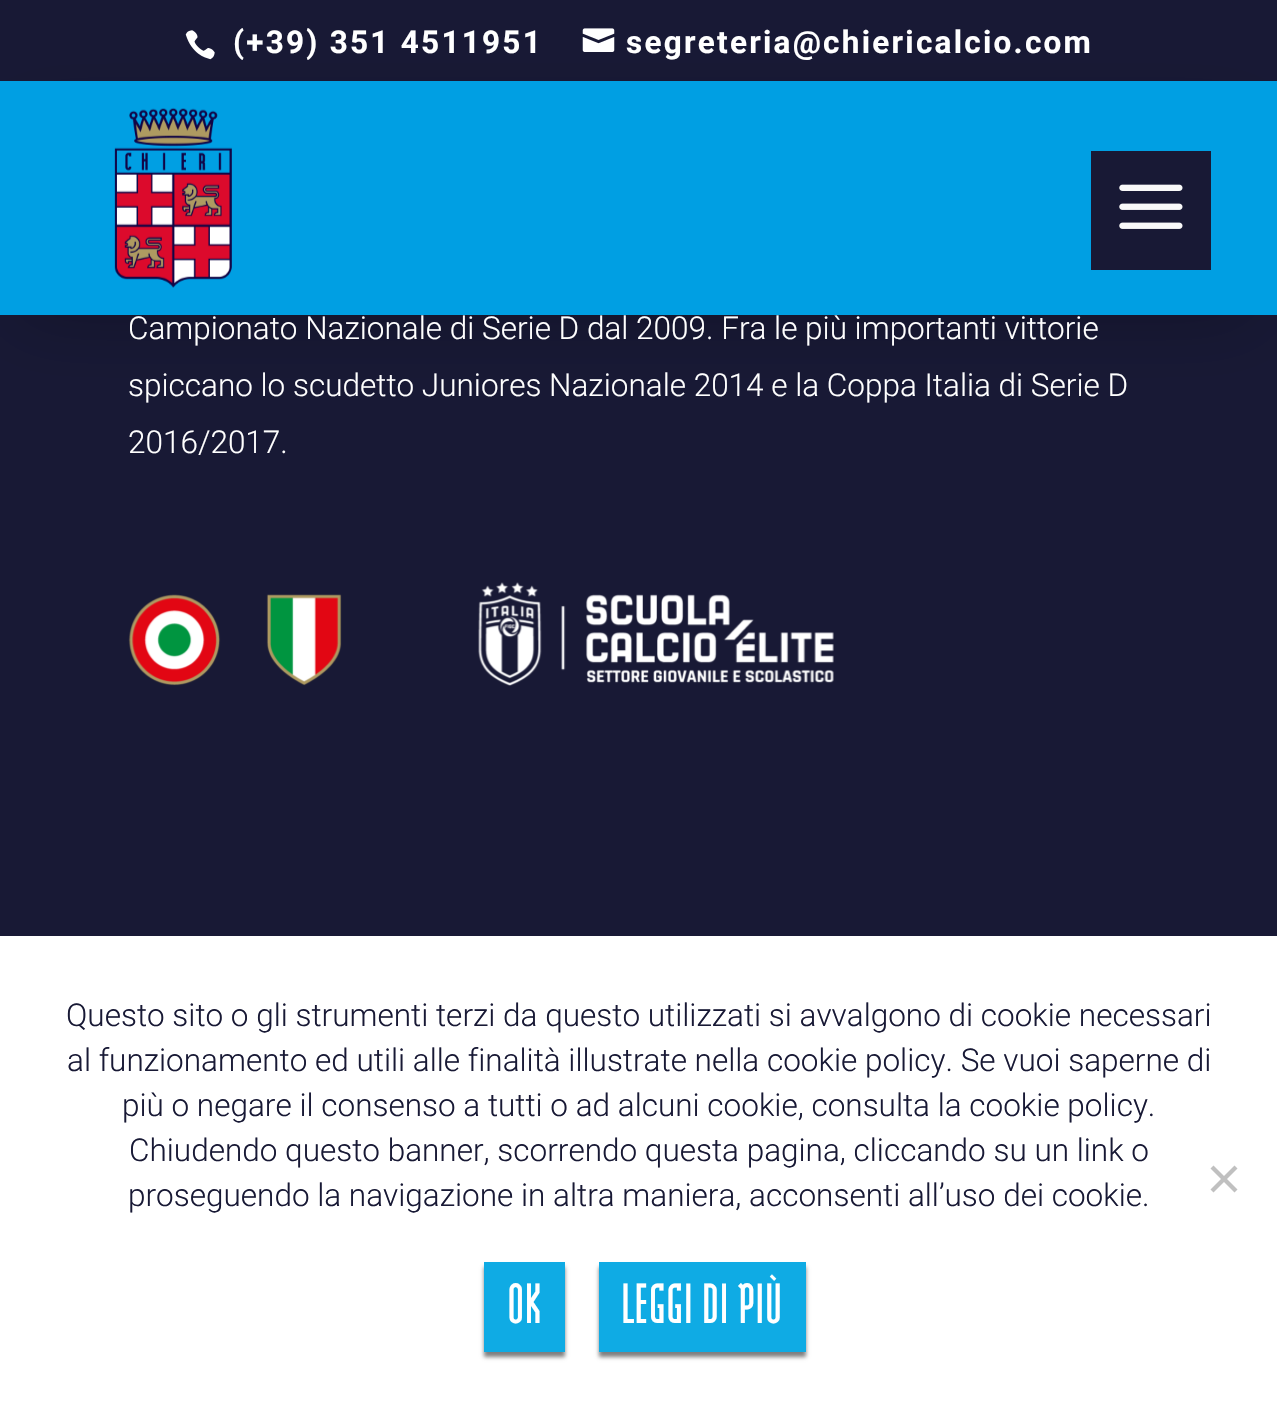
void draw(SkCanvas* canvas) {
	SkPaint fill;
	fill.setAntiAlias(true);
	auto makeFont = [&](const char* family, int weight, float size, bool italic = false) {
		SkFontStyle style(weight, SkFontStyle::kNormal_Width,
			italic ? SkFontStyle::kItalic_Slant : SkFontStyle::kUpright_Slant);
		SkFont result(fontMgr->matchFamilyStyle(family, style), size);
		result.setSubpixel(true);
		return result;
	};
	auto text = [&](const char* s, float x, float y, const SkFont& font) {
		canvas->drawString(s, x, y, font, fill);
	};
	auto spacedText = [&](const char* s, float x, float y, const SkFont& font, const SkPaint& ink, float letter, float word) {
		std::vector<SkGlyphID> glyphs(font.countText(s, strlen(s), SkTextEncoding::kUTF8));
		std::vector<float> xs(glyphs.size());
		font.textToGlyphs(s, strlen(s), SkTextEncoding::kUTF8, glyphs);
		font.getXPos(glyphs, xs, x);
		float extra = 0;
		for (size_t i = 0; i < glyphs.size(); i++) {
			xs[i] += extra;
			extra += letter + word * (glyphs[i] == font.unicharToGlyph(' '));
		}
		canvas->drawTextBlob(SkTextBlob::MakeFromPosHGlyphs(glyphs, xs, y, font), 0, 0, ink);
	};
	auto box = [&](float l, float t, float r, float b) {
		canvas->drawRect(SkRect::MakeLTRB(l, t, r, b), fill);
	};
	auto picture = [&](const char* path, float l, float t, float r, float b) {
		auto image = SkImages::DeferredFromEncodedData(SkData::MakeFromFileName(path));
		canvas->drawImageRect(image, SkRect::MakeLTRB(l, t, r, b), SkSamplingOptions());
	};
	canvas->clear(0xFF181935);
	fill.setColor(0x40000000);
	fill.setMaskFilter(SkMaskFilter::MakeBlur(kNormal_SkBlurStyle, 36));
	canvas->drawRect(SkRect::MakeLTRB(20, 126, 1253, 315), fill);
	fill.setMaskFilter(nullptr);
	fill.setColor(0xFF009FE3);
	box(0, 81, 1277, 315);
	picture("image0.png", 114, 107, 232, 288);
	fill.setColor(0xFF181935);
	box(1091, 151, 1211, 270);
	picture("image1.png", 1119, 184, 1183, 229);
	picture("image2.png", 185, 30, 215, 60);
	picture("image3.png", 582, 28, 615, 52);
	picture("image4.png", 128, 582, 834, 686);
	fill.setColor(0xFFFFFFFF);
	box(0, 936, 1277, 1419);
	fill.setColor(0xFFC0C0C0);
	canvas->drawPath(SkPathBuilder().moveTo(1234.5f, 1165.5f).lineTo(1237.5f, 1168.5f).lineTo(1213.5f, 1192.5f).lineTo(1210.5f, 1189.5f).close().detach(), fill);
	canvas->drawPath(SkPathBuilder().moveTo(1210.5f, 1168.5f).lineTo(1213.5f, 1165.5f).lineTo(1237.5f, 1189.5f).lineTo(1234.5f, 1192.5f).close().detach(), fill);
	fill.setColor(0x80000000);
	fill.setMaskFilter(SkMaskFilter::MakeBlur(kNormal_SkBlurStyle, 2));
	canvas->drawRect(SkRect::MakeLTRB(484, 1267, 565, 1357), fill);
	fill.setMaskFilter(nullptr);
	fill.setColor(0xFF0FABE4);
	box(484, 1262, 565, 1352);
	fill.setColor(0x80000000);
	fill.setMaskFilter(SkMaskFilter::MakeBlur(kNormal_SkBlurStyle, 2));
	canvas->drawRect(SkRect::MakeLTRB(599, 1267, 806, 1357), fill);
	fill.setMaskFilter(nullptr);
	fill.setColor(0xFF0FABE4);
	box(599, 1262, 806, 1352);
	auto font1 = makeFont("Roboto", 700, 31.5f);
	fill.setColor(0xFFFFFFFF);
	spacedText("(+39) 351 4511951", 233, 53, font1, fill, 2.25f, 0);
	spacedText("segreteria@chiericalcio.com", 626, 53, font1, fill, 2.25f, 0);
	auto font2 = makeFont("Roboto", 300, 31.5f);
	text("Campionato Nazionale di Serie D dal 2009. Fra le più importanti vittorie", 128, 339, font2);
	text("spiccano lo scudetto Juniores Nazionale 2014 e la Coppa Italia di Serie D", 128, 396, font2);
	text("2016/2017.", 128, 453, font2);
	fill.setColor(0xFF181935);
	text("Questo sito o gli strumenti terzi da questo utilizzati si avvalgono di cookie necessari", 66, 1026, font2);
	text("al funzionamento ed utili alle finalità illustrate nella cookie policy. Se vuoi saperne di", 67, 1071, font2);
	text("più o negare il consenso a tutti o ad alcuni cookie, consulta la cookie policy.", 122, 1116, font2);
	text("Chiudendo questo banner, scorrendo questa pagina, cliccando su un link o", 129, 1161, font2);
	text("proseguendo la navigazione in altra maniera, acconsenti all’uso dei cookie.", 128, 1206, font2);
	auto font3 = makeFont("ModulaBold", 700, 67.5f);
	fill.setColor(0xFFFFFFFF);
	text("OK", 507, 1323, font3);
	text("LEGGI DI PIÙ", 621, 1323, font3);
}
